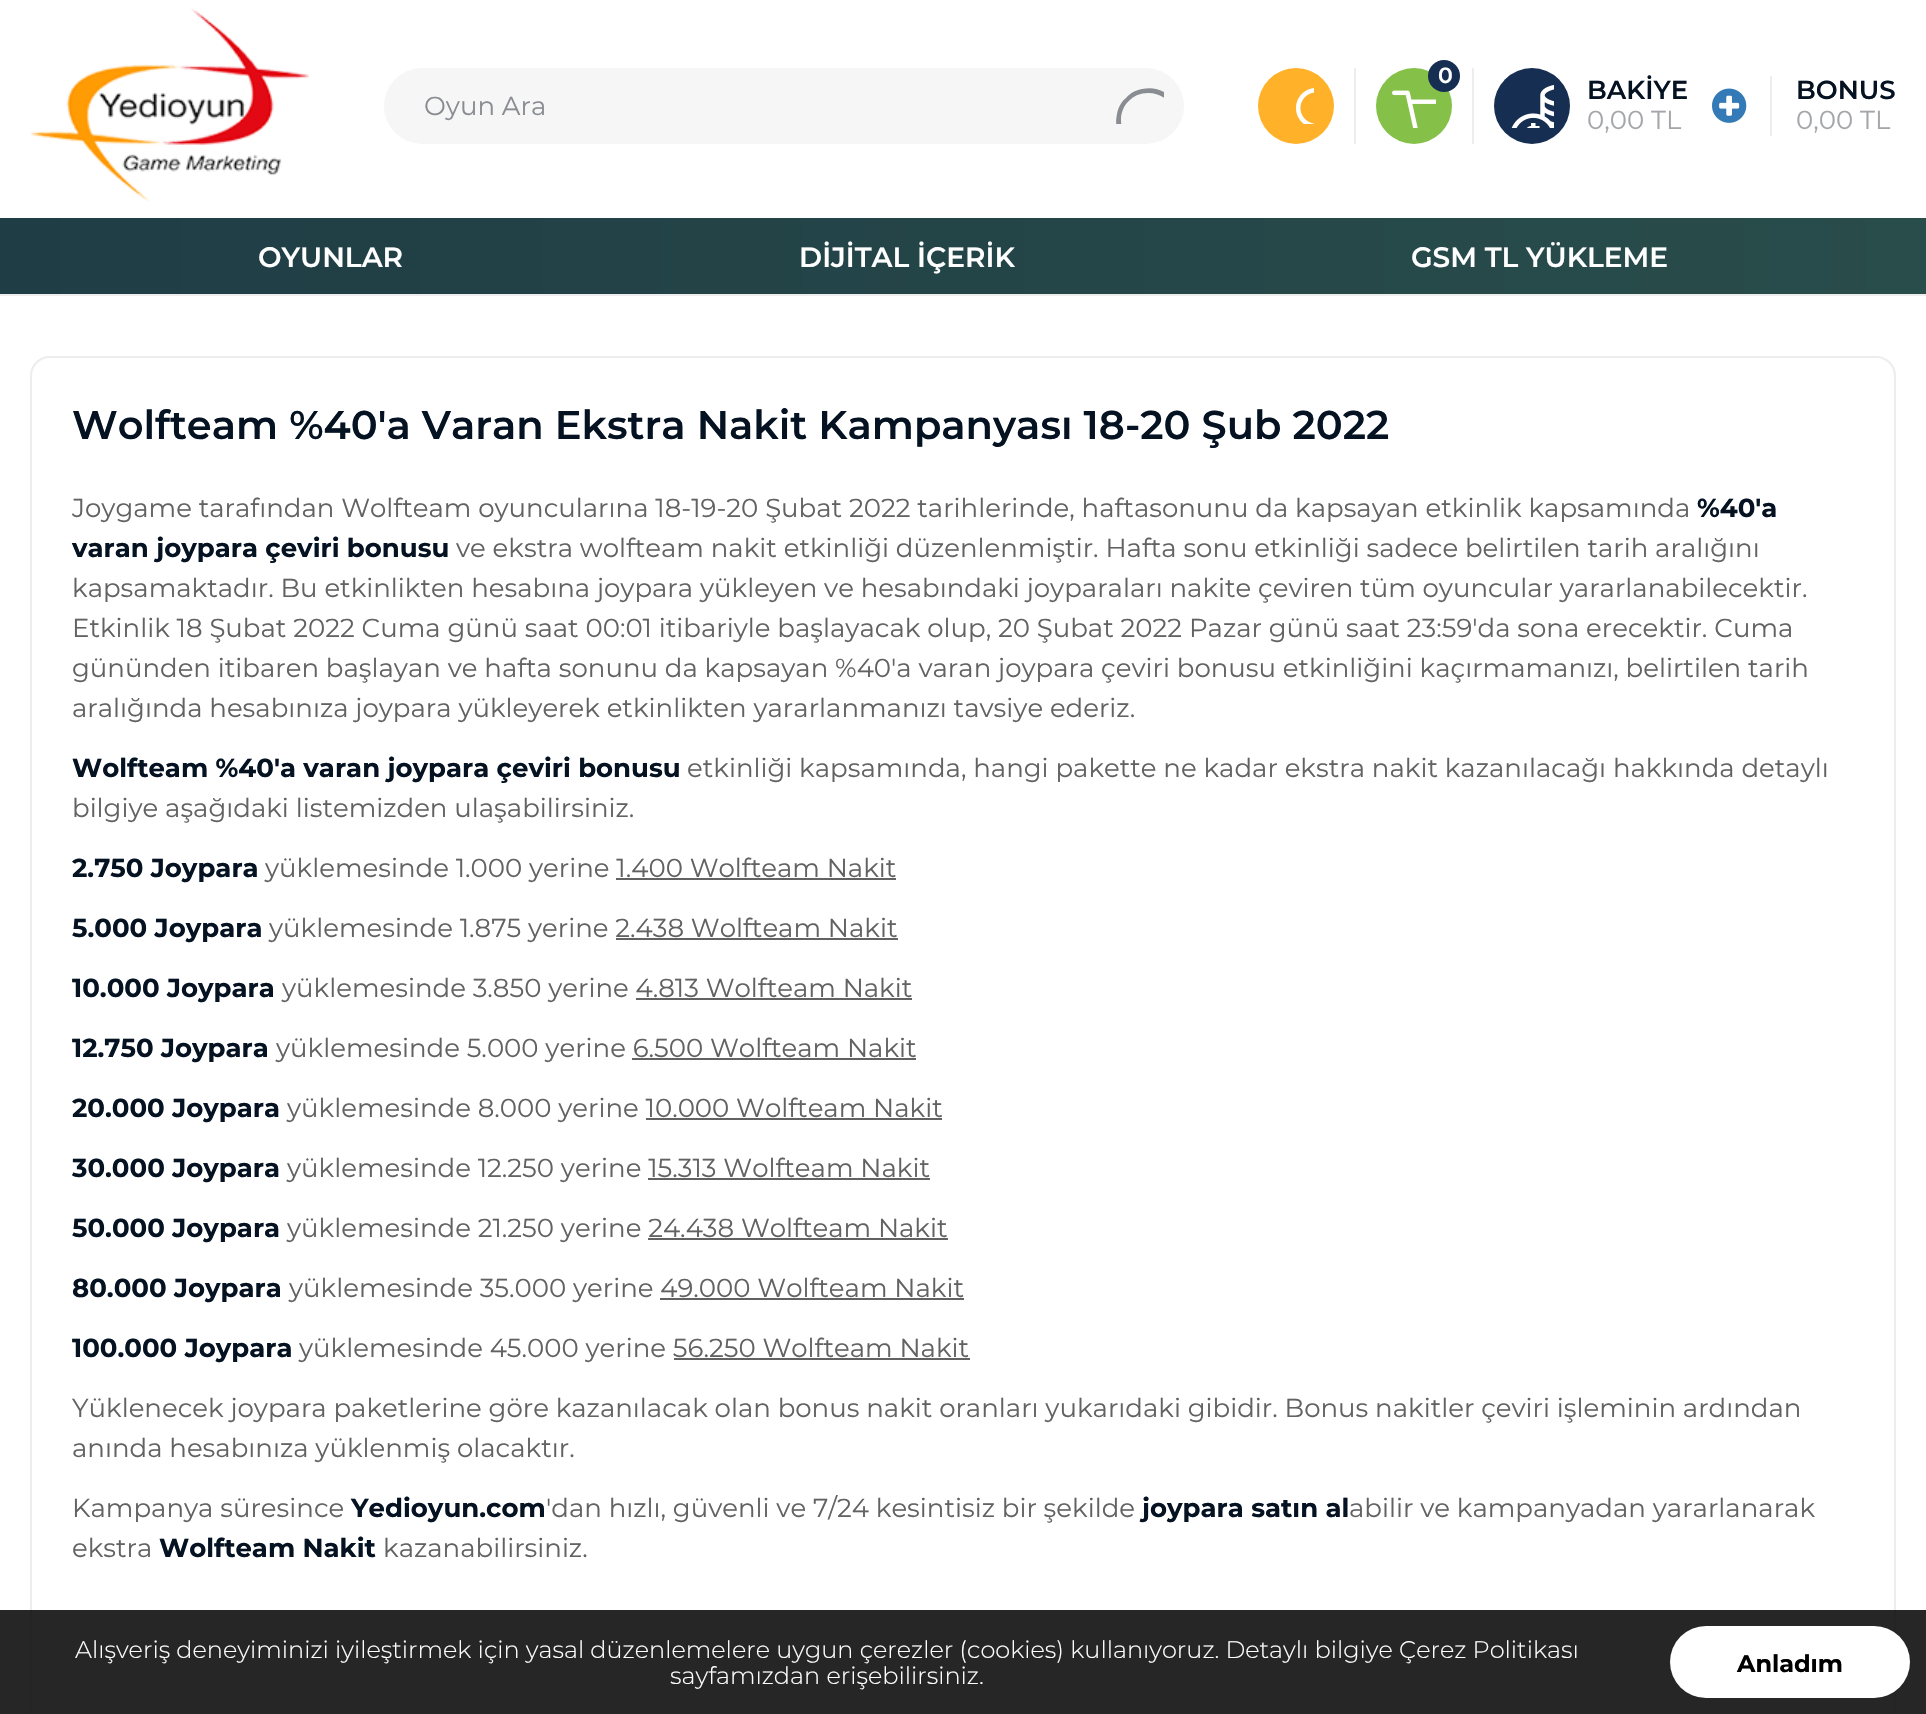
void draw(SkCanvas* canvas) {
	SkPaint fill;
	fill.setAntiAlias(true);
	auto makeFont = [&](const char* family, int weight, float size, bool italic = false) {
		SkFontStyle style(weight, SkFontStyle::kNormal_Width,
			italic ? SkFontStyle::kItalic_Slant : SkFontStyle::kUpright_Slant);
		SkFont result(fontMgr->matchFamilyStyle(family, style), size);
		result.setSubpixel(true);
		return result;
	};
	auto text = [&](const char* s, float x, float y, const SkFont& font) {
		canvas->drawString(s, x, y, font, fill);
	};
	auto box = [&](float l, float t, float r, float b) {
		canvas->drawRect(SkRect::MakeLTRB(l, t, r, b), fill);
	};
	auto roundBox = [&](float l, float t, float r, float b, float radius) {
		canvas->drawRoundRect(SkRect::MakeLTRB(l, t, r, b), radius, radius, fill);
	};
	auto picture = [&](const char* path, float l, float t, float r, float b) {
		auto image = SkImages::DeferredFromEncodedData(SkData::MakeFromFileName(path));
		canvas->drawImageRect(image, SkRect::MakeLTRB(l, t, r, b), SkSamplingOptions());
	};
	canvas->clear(0xFFFFFFFF);
	fill.setColor(0xFFEDEDED);
	box(0, 294, 1926, 296);
	picture("image0.png", 30, 8, 310, 202);
	fill.setColor(0xFFFFB229);
	canvas->drawCircle(1296, 106, 38, fill);
	picture("image1.png", 1296, 88, 1314, 124);
	fill.setColor(0xFFEDEDED);
	box(1354, 68, 1356, 144);
	fill.setColor(0xFF85C149);
	canvas->drawCircle(1414, 106, 38, fill);
	picture("image2.png", 1392, 90, 1436, 128);
	fill.setColor(0xFF162E51);
	canvas->drawCircle(1444, 76, 16, fill);
	fill.setColor(0xFFEDEDED);
	box(1472, 68, 1474, 144);
	fill.setColor(0xFF162E51);
	canvas->drawCircle(1532, 106, 38, fill);
	picture("image3.png", 1511, 85, 1554, 128);
	picture("image4.png", 1712, 88, 1747, 123);
	fill.setColor(0xFFEDEDED);
	box(1770, 76, 1772, 136);
	fill.setColor(0xFFF6F6F6);
	roundBox(384, 68, 1184, 144, 38);
	canvas->save();
	canvas->clipRect(SkRect::MakeLTRB(1104, 88, 1164, 124));
	fill.setColor(0xFF898C90);
	canvas->drawPath(SkPathBuilder().moveTo(1191, 160).lineTo(1173, 142).cubicTo(1193, 119, 1172, 82, 1142, 89).cubicTo(1136, 90, 1130, 93, 1126, 98).cubicTo(1121, 102, 1118, 108, 1117, 114).cubicTo(1110, 144, 1147, 165, 1170, 145).lineTo(1188, 163).cubicTo(1190, 165, 1193, 162, 1191, 160).close().moveTo(1121, 120).cubicTo(1121, 105, 1133, 93, 1148, 93).cubicTo(1164, 93, 1176, 105, 1176, 120).cubicTo(1176, 136, 1164, 148, 1148, 148).cubicTo(1133, 148, 1121, 136, 1121, 120).close().detach(), fill);
	canvas->restore();
	{
		const SkColor colors[] = {0xFF1F3D45, 0xFF294D4B};
		const float stops[] = {0, 1};
		const SkPoint ends[] = {{0, 256}, {1926, 256}};
		fill.setShader(SkGradientShader::MakeLinear(ends, colors, stops, 2, SkTileMode::kClamp));
		fill.setAlpha(255);
	}
	box(0, 218, 1926, 294);
	fill.setStyle(SkPaint::kStroke_Style);
	fill.setStrokeWidth(2);
	fill.setShader(nullptr);
	fill.setColor(0xFFEDEDED);
	canvas->drawRoundRect(SkRect::MakeLTRB(31, 357, 1895, 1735), 19, 19, fill);
	fill.setStyle(SkPaint::kFill_Style);
	fill.setColor(0xFF626262);
	box(616, 878, 896, 880);
	box(616, 938, 898, 940);
	box(636, 998, 912, 1000);
	box(632, 1058, 916, 1060);
	box(646, 1118, 942, 1120);
	box(648, 1178, 930, 1180);
	box(648, 1238, 948, 1240);
	box(660, 1298, 964, 1300);
	box(674, 1358, 970, 1360);
	fill.setColor(0xD9000000);
	box(0, 1610, 1926, 1714);
	fill.setColor(0xFFFFFFFF);
	roundBox(1670, 1626, 1910, 1698, 36);
	auto font1 = makeFont("Montserrat", 600, 22);
	text("0", 1438, 83, font1);
	auto font2 = makeFont("Montserrat", 600, 26);
	fill.setColor(0xFF051222);
	text("BAKİYE", 1587, 99, font2);
	auto font3 = makeFont("Montserrat", 400, 26);
	fill.setColor(0xFFA4A6A9);
	text("0,00 TL", 1587, 129, font3);
	fill.setColor(0xFF051222);
	text("BONUS", 1796, 99, font2);
	fill.setColor(0xFFA4A6A9);
	text("0,00 TL", 1796, 129, font3);
	fill.setColor(0xFF898C90);
	text("Oyun Ara", 424, 115, font3);
	auto font4 = makeFont("Montserrat", 600, 28);
	fill.setColor(0xFFFFFFFF);
	text("OYUNLAR", 258, 267, font4);
	text("DİJİTAL İÇERİK", 799, 267, font4);
	text("GSM TL YÜKLEME", 1411, 267, font4);
	auto font5 = makeFont("Montserrat", 600, 40);
	fill.setColor(0xFF051222);
	text("Wolfteam %40'a Varan Ekstra Nakit Kampanyası 18-20 Şub 2022", 72, 439, font5);
	fill.setColor(0xFF626262);
	text("Joygame tarafından Wolfteam oyuncularına 18-19-20 Şubat 2022 tarihlerinde, haftasonunu da kapsayan etkinlik kapsamında", 72, 517, font3);
	auto font6 = makeFont("Montserrat", 700, 26);
	fill.setColor(0xFF051222);
	text("%40'a", 1697, 517, font6);
	text("varan joypara çeviri bonusu", 72, 557, font6);
	fill.setColor(0xFF626262);
	text("ve ekstra wolfteam nakit etkinliği düzenlenmiştir. Hafta sonu etkinliği sadece belirtilen tarih aralığını", 456, 557, font3);
	text("kapsamaktadır. Bu etkinlikten hesabına joypara yükleyen ve hesabındaki joyparaları nakite çeviren tüm oyuncular yararlanabilecektir.", 72, 597, font3);
	text("Etkinlik 18 Şubat 2022 Cuma günü saat 00:01 itibariyle başlayacak olup, 20 Şubat 2022 Pazar günü saat 23:59'da sona erecektir. Cuma", 72, 637, font3);
	text("gününden itibaren başlayan ve hafta sonunu da kapsayan %40'a varan joypara çeviri bonusu etkinliğini kaçırmamanızı, belirtilen tarih", 72, 677, font3);
	text("aralığında hesabınıza joypara yükleyerek etkinlikten yararlanmanızı tavsiye ederiz.", 72, 717, font3);
	fill.setColor(0xFF051222);
	text("Wolfteam %40'a varan joypara çeviri bonusu", 72, 777, font6);
	fill.setColor(0xFF626262);
	text("etkinliği kapsamında, hangi pakette ne kadar ekstra nakit kazanılacağı hakkında detaylı", 687, 777, font3);
	text("bilgiye aşağıdaki listemizden ulaşabilirsiniz.", 72, 817, font3);
	fill.setColor(0xFF051222);
	text("2.750 Joypara", 72, 877, font6);
	fill.setColor(0xFF626262);
	text("yüklemesinde 1.000 yerine 1.400 Wolfteam Nakit", 265, 877, font3);
	fill.setColor(0xFF051222);
	text("5.000 Joypara", 72, 937, font6);
	fill.setColor(0xFF626262);
	text("yüklemesinde 1.875 yerine 2.438 Wolfteam Nakit", 269, 937, font3);
	fill.setColor(0xFF051222);
	text("10.000 Joypara", 72, 997, font6);
	fill.setColor(0xFF626262);
	text("yüklemesinde 3.850 yerine 4.813 Wolfteam Nakit", 282, 997, font3);
	fill.setColor(0xFF051222);
	text("12.750 Joypara", 72, 1057, font6);
	fill.setColor(0xFF626262);
	text("yüklemesinde 5.000 yerine 6.500 Wolfteam Nakit", 276, 1057, font3);
	fill.setColor(0xFF051222);
	text("20.000 Joypara", 72, 1117, font6);
	fill.setColor(0xFF626262);
	text("yüklemesinde 8.000 yerine 10.000 Wolfteam Nakit", 287, 1117, font3);
	fill.setColor(0xFF051222);
	text("30.000 Joypara", 72, 1177, font6);
	fill.setColor(0xFF626262);
	text("yüklemesinde 12.250 yerine 15.313 Wolfteam Nakit", 287, 1177, font3);
	fill.setColor(0xFF051222);
	text("50.000 Joypara", 72, 1237, font6);
	fill.setColor(0xFF626262);
	text("yüklemesinde 21.250 yerine 24.438 Wolfteam Nakit", 287, 1237, font3);
	fill.setColor(0xFF051222);
	text("80.000 Joypara", 72, 1297, font6);
	fill.setColor(0xFF626262);
	text("yüklemesinde 35.000 yerine 49.000 Wolfteam Nakit", 289, 1297, font3);
	fill.setColor(0xFF051222);
	text("100.000 Joypara", 72, 1357, font6);
	fill.setColor(0xFF626262);
	text("yüklemesinde 45.000 yerine 56.250 Wolfteam Nakit", 299, 1357, font3);
	text("Yüklenecek joypara paketlerine göre kazanılacak olan bonus nakit oranları yukarıdaki gibidir. Bonus nakitler çeviri işleminin ardından", 72, 1417, font3);
	text("anında hesabınıza yüklenmiş olacaktır.", 72, 1457, font3);
	text("Kampanya süresince", 72, 1517, font3);
	fill.setColor(0xFF051222);
	text("Yedioyun.com", 351, 1517, font6);
	fill.setColor(0xFF626262);
	text("'dan hızlı, güvenli ve 7/24 kesintisiz bir şekilde", 546, 1517, font3);
	fill.setColor(0xFF051222);
	text("joypara satın al", 1142, 1517, font6);
	fill.setColor(0xFF626262);
	text("abilir ve kampanyadan yararlanarak", 1349, 1517, font3);
	text("ekstra", 72, 1557, font3);
	fill.setColor(0xFF051222);
	text("Wolfteam Nakit", 159, 1557, font6);
	fill.setColor(0xFF626262);
	text("kazanabilirsiniz.", 383, 1557, font3);
	auto font7 = makeFont("Montserrat", 300, 24);
	fill.setColor(0xFFFFFFFF);
	text("Alışveriş deneyiminizi iyileştirmek için yasal düzenlemelere uygun çerezler (cookies) kullanıyoruz. Detaylı bilgiye Çerez Politikası", 75, 1658, font7);
	text("sayfamızdan erişebilirsiniz.", 670, 1684, font7);
	auto font8 = makeFont("Montserrat", 700, 24);
	fill.setColor(0xFF000000);
	text("Anladım", 1737, 1672, font8);
}
